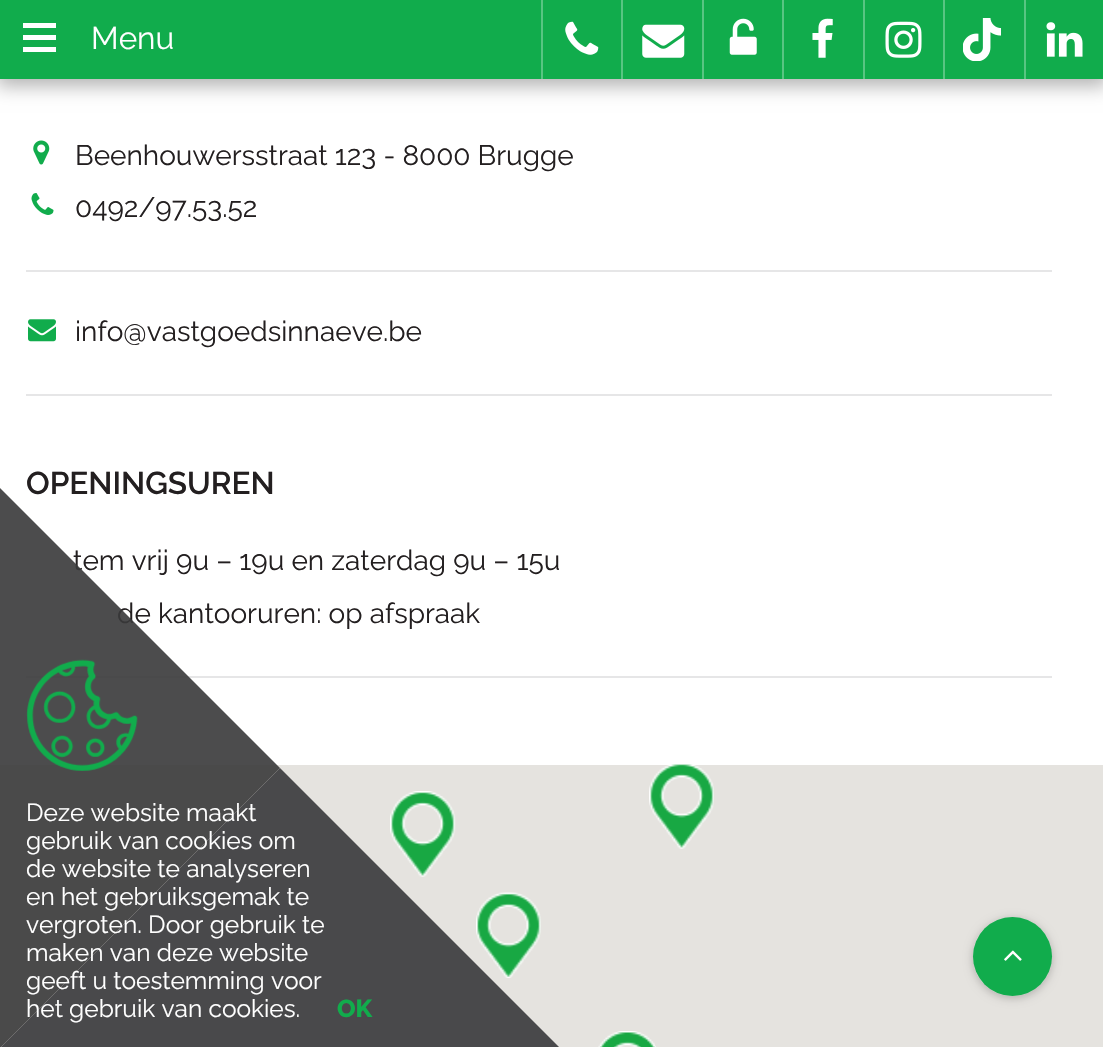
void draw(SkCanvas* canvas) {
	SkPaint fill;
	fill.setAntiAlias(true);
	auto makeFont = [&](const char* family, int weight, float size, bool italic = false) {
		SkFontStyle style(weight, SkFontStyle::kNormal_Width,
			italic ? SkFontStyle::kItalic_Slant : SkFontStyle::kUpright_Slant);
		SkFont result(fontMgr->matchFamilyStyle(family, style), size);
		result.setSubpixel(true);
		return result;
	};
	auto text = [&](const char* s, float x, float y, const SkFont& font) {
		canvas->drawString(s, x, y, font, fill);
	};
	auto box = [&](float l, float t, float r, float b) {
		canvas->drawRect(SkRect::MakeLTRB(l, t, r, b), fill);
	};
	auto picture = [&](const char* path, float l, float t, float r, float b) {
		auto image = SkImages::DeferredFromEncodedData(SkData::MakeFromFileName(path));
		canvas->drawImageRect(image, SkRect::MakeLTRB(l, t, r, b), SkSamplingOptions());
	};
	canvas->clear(0xFFFFFFFF);
	fill.setColor(0x4D000000);
	fill.setMaskFilter(SkMaskFilter::MakeBlur(kNormal_SkBlurStyle, 9));
	canvas->drawRect(SkRect::MakeLTRB(-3, 0, 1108, 86), fill);
	fill.setMaskFilter(nullptr);
	fill.setColor(0xFF11AC4C);
	box(0, 0, 1103, 79);
	fill.setColor(0xFFFFFFFF);
	box(23, 35, 56, 40);
	box(23, 23, 56, 28);
	box(23, 47, 56, 52);
	fill.setColor(0xFF58C582);
	box(541, 0, 543, 79);
	picture("image0.png", 565, 21, 599, 55);
	box(621, 0, 623, 79);
	picture("image1.png", 642, 24, 685, 58);
	box(702, 0, 704, 79);
	picture("image2.png", 729, 18, 757, 55);
	box(782, 0, 784, 79);
	picture("image3.png", 812, 18, 833, 58);
	box(863, 0, 865, 79);
	picture("image4.png", 885, 21, 922, 58);
	box(943, 0, 945, 79);
	picture("image5.png", 963, 18, 1001, 61);
	box(1024, 0, 1026, 79);
	picture("image6.png", 1046, 22, 1083, 57);
	picture("image7.png", 33, 140, 50, 165);
	picture("image8.png", 31, 193, 54, 215);
	fill.setColor(0xFFE6E6E7);
	box(26, 270, 1052, 272);
	picture("image9.png", 28, 319, 56, 342);
	box(26, 394, 1052, 396);
	box(26, 676, 1052, 678);
	fill.setColor(0xFFE5E3DF);
	box(0, 765, 1103, 1047);
	picture("image10.png", 649, 764, 714, 849);
	picture("image11.png", 390, 791, 456, 877);
	picture("image12.png", 649, 764, 714, 849);
	picture("image13.png", 390, 791, 455, 877);
	picture("image14.png", 476, 892, 541, 978);
	picture("image15.png", 476, 892, 541, 978);
	picture("image16.png", 598, 1031, 656, 1047);
	picture("image17.png", 598, 1031, 656, 1047);
	fill.setColor(0xFF49494B);
	canvas->drawPath(SkPathBuilder().moveTo(560, 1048).lineTo(0, 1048).lineTo(280, 768).close().detach(), fill);
	fill.setColor(0xFF11AC4C);
	canvas->drawCircle(1012.5f, 956.5f, 39.5f, fill);
	canvas->save();
	canvas->clipPath(SkPathBuilder(SkPathFillType::kEvenOdd).moveTo(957, 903).lineTo(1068, 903).lineTo(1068, 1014).lineTo(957, 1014).close().moveTo(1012.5f, 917).cubicTo(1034.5f, 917, 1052, 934.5f, 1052, 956.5f).cubicTo(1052, 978.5f, 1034.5f, 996, 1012.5f, 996).cubicTo(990.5f, 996, 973, 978.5f, 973, 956.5f).cubicTo(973, 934.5f, 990.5f, 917, 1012.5f, 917).close().detach(), true);
	fill.setColor(0x3D000000);
	fill.setMaskFilter(SkMaskFilter::MakeBlur(kNormal_SkBlurStyle, 5));
	canvas->drawRoundRect(SkRect::MakeLTRB(973, 919, 1052, 998), 39.5f, 39.5f, fill);
	fill.setMaskFilter(nullptr);
	canvas->restore();
	fill.setColor(0x3D11AC4C);
	canvas->drawCircle(1012.5f, 956.5f, 39.5f, fill);
	picture("image19.png", 1004, 950, 1022, 961);
	auto font1 = makeFont("Raleway", 400, 31.5f);
	fill.setColor(0xFFFFFFFF);
	text("Menu", 91, 49, font1);
	auto font2 = makeFont("Raleway", 400, 28);
	fill.setColor(0xFF231F20);
	text("Beenhouwersstraat 123 - 8000 Brugge", 75, 165, font2);
	text("0492/97.53.52", 75, 217, font2);
	text("info@vastgoedsinnaeve.be", 75, 341, font2);
	auto font3 = makeFont("Raleway", 600, 31.5f);
	text("OPENINGSUREN", 26, 494, font3);
	text("tem vrij 9u – 19u en zaterdag 9u – 15u", 73, 570, font2);
	text("de kantooruren: op afspraak", 117, 623, font2);
	fill.setColor(0xE638383A);
	canvas->drawPath(SkPathBuilder().moveTo(0, 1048).lineTo(0, 488).lineTo(280, 768).close().detach(), fill);
	picture("image18.png", 26, 659, 138, 771);
	auto font4 = makeFont("Raleway", 400, 24.5f);
	fill.setColor(0xFFFFFFFF);
	text("Deze website maakt", 26, 821, font4);
	text("gebruik van cookies om", 26, 849, font4);
	text("de website te analyseren", 26, 877, font4);
	text("en het gebruiksgemak te", 26, 905, font4);
	text("vergroten. Door gebruik te", 26, 933, font4);
	text("maken van deze website", 26, 961, font4);
	text("geeft u toestemming voor", 26, 989, font4);
	text("het gebruik van cookies.", 26, 1017, font4);
	auto font5 = makeFont("Raleway", 800, 24.5f);
	fill.setColor(0xFF11AC4C);
	text("OK", 337, 1017, font5);
}
